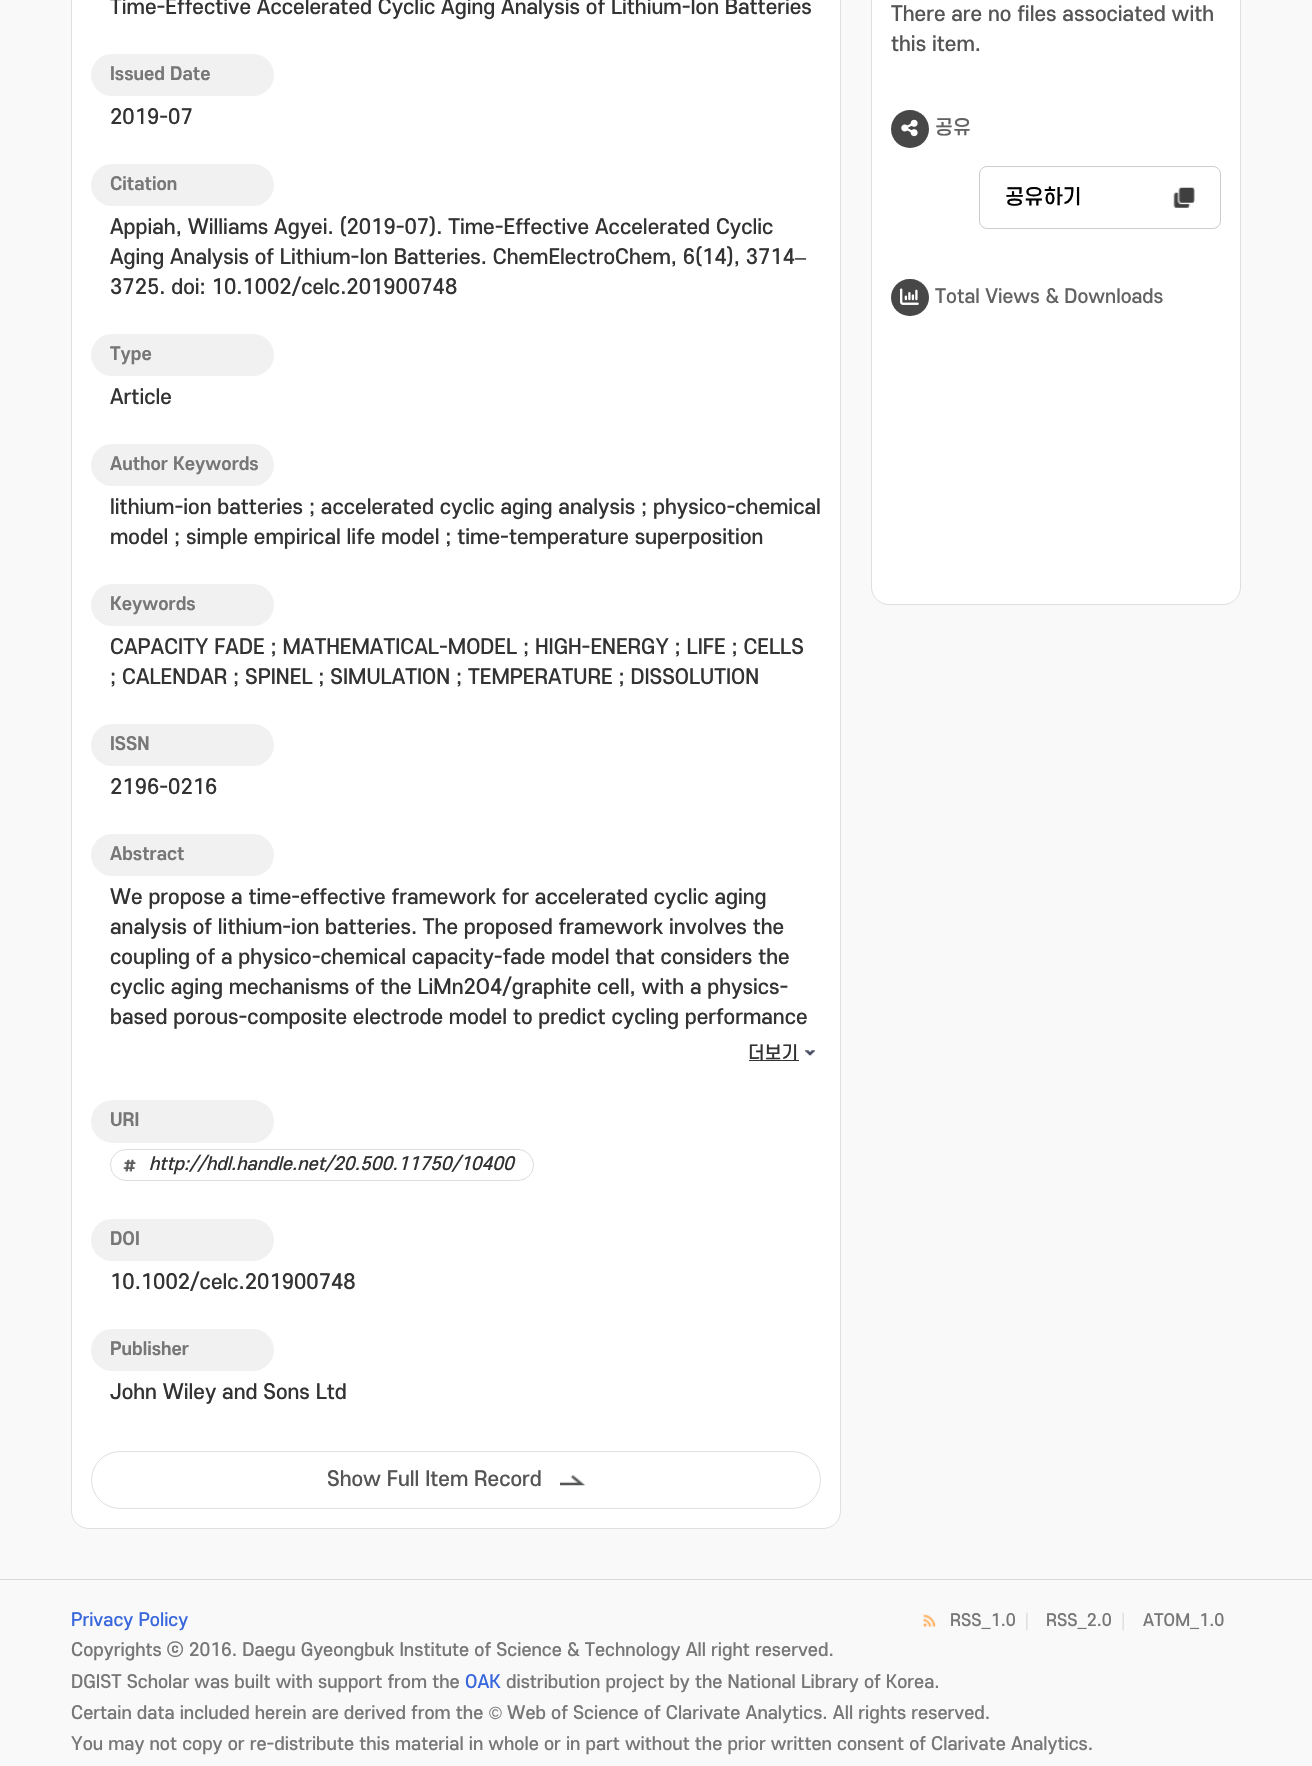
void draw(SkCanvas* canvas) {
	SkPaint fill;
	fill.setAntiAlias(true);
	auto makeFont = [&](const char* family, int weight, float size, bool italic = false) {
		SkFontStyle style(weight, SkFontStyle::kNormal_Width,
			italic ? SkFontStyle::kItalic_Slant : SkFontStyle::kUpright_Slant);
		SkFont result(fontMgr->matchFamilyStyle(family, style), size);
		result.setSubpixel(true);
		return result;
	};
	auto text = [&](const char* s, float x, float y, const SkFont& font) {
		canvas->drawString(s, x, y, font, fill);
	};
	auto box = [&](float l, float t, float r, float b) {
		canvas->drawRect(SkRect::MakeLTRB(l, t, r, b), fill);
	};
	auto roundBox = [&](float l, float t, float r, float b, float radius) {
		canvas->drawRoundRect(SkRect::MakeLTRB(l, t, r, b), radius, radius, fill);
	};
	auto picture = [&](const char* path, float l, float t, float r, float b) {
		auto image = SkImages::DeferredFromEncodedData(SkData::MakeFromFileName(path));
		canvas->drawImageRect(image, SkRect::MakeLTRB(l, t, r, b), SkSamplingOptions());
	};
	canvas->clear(0xFFF9F9F9);
	fill.setColor(0xFFFFFFFF);
	canvas->drawRoundRect(SkRect::MakeLTRB(71.5f, -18.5f, 840.5f, 1528.5f), 17.5f, 17.5f, fill);
	fill.setStyle(SkPaint::kStroke_Style);
	fill.setStrokeWidth(1);
	fill.setColor(0xFFDFDFDF);
	canvas->drawRoundRect(SkRect::MakeLTRB(71.5f, -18.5f, 840.5f, 1528.5f), 17.5f, 17.5f, fill);
	fill.setStyle(SkPaint::kFill_Style);
	fill.setColor(0xFFF1F1F1);
	roundBox(91, 54, 274, 96, 21);
	roundBox(91, 164, 274, 206, 21);
	roundBox(91, 334, 274, 376, 21);
	roundBox(91, 444, 274, 486, 21);
	roundBox(91, 584, 274, 626, 21);
	roundBox(91, 724, 274, 766, 21);
	roundBox(91, 834, 274, 876, 21);
	fill.setColor(0xFF333333);
	box(749, 1060, 799, 1061);
	picture("image0.png", 805, 1050, 815, 1056);
	fill.setColor(0xFFF1F1F1);
	roundBox(91, 1100, 274, 1143, 21.5f);
	picture("image1.png", 123, 1159, 136, 1172);
	fill.setStyle(SkPaint::kStroke_Style);
	fill.setColor(0xFFDDDDDD);
	canvas->drawRoundRect(SkRect::MakeLTRB(110.5f, 1149.5f, 533.5f, 1180.5f), 15.5f, 15.5f, fill);
	fill.setStyle(SkPaint::kFill_Style);
	fill.setColor(0xFFF1F1F1);
	roundBox(91, 1219, 274, 1261, 21);
	roundBox(91, 1329, 274, 1371, 21);
	fill.setStyle(SkPaint::kStroke_Style);
	fill.setColor(0xFFE0E0E0);
	canvas->drawRoundRect(SkRect::MakeLTRB(91.5f, 1451.5f, 820.5f, 1508.5f), 28.5f, 28.5f, fill);
	picture("image2.png", 560, 1475, 585, 1486);
	fill.setStyle(SkPaint::kFill_Style);
	fill.setColor(0xFFFFFFFF);
	canvas->drawRoundRect(SkRect::MakeLTRB(871.5f, -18.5f, 1240.5f, 604.5f), 17.5f, 17.5f, fill);
	fill.setStyle(SkPaint::kStroke_Style);
	fill.setColor(0xFFDFDFDF);
	canvas->drawRoundRect(SkRect::MakeLTRB(871.5f, -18.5f, 1240.5f, 604.5f), 17.5f, 17.5f, fill);
	fill.setStyle(SkPaint::kFill_Style);
	fill.setColor(0xFF474747);
	canvas->drawCircle(910, 129, 19, fill);
	picture("image3.png", 901, 119, 918, 137);
	fill.setStyle(SkPaint::kStroke_Style);
	fill.setColor(0xFFCCCCCC);
	canvas->drawRoundRect(SkRect::MakeLTRB(979.5f, 166.5f, 1220.5f, 228.5f), 7.5f, 7.5f, fill);
	picture("image4.png", 1173, 187, 1195, 208);
	fill.setStyle(SkPaint::kFill_Style);
	fill.setColor(0xFF474747);
	roundBox(891, 279, 929, 316, 18.5f);
	picture("image5.png", 900, 288, 919, 305);
	fill.setColor(0xFFD8D8D8);
	box(0, 1579, 1312, 1580);
	picture("image6.png", 922, 1614, 936, 1627);
	picture("image7.png", 1026, 1612, 1028, 1631);
	picture("image8.png", 1122, 1612, 1124, 1631);
	auto font1 = makeFont("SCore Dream", 500, 20);
	fill.setColor(0xFF333333);
	text("Time-Effective Accelerated Cyclic Aging Analysis of Lithium-Ion Batteries", 110, 14, font1);
	auto font2 = makeFont("SCore Dream", 700, 17.5f);
	fill.setColor(0xFF777777);
	text("Issued Date", 110, 80, font2);
	fill.setColor(0xFF333333);
	text("2019-07", 110, 124, font1);
	fill.setColor(0xFF777777);
	text("Citation", 110, 190, font2);
	fill.setColor(0xFF333333);
	text("Appiah, Williams Agyei. (2019-07). Time-Effective Accelerated Cyclic", 110, 234, font1);
	text("Aging Analysis of Lithium-Ion Batteries. ChemElectroChem, 6(14), 3714", 110, 264, font1);
	auto font3 = makeFont("Liberation Sans", 400, 20);
	text("–", 795, 264, font3);
	text("3725. doi: 10.1002/celc.201900748", 110, 294, font1);
	fill.setColor(0xFF777777);
	text("Type", 110, 360, font2);
	fill.setColor(0xFF333333);
	text("Article", 110, 404, font1);
	fill.setColor(0xFF777777);
	text("Author Keywords", 110, 470, font2);
	fill.setColor(0xFF333333);
	text("lithium-ion batteries ; accelerated cyclic aging analysis ; physico-chemical", 110, 514, font1);
	text("model ; simple empirical life model ; time-temperature superposition", 110, 544, font1);
	fill.setColor(0xFF777777);
	text("Keywords", 110, 610, font2);
	fill.setColor(0xFF333333);
	text("CAPACITY FADE ; MATHEMATICAL-MODEL ; HIGH-ENERGY ; LIFE ; CELLS", 110, 654, font1);
	text("; CALENDAR ; SPINEL ; SIMULATION ; TEMPERATURE ; DISSOLUTION", 110, 684, font1);
	fill.setColor(0xFF777777);
	text("ISSN", 110, 750, font2);
	fill.setColor(0xFF333333);
	text("2196-0216", 110, 794, font1);
	fill.setColor(0xFF777777);
	text("Abstract", 110, 860, font2);
	fill.setColor(0xFF333333);
	text("We propose a time-effective framework for accelerated cyclic aging", 110, 904, font1);
	text("analysis of lithium-ion batteries. The proposed framework involves the", 110, 934, font1);
	text("coupling of a physico-chemical capacity-fade model that considers the", 110, 964, font1);
	text("cyclic aging mechanisms of the LiMn2O4/graphite cell, with a physics-", 110, 994, font1);
	text("based porous-composite electrode model to predict cycling performance", 110, 1024, font1);
	auto font4 = makeFont("SCore Dream", 500, 17.5f);
	text("더보기", 748, 1059, font4);
	fill.setColor(0xFF777777);
	text("URI", 110, 1126, font2);
	auto font5 = makeFont("SCore Dream", 500, 17.5f, true);
	fill.setColor(0xFF333333);
	text("http://hdl.handle.net/20.500.11750/10400", 149, 1170, font5);
	fill.setColor(0xFF777777);
	text("DOI", 110, 1245, font2);
	fill.setColor(0xFF333333);
	text("10.1002/celc.201900748", 110, 1289, font1);
	fill.setColor(0xFF777777);
	text("Publisher", 110, 1355, font2);
	fill.setColor(0xFF333333);
	text("John Wiley and Sons Ltd", 110, 1399, font1);
	fill.setColor(0xFF555555);
	text("Show Full Item Record", 327, 1486, font1);
	text("There are no files associated with", 891, 21, font1);
	text("this item.", 891, 51, font1);
	auto font6 = makeFont("SCore Dream", 500, 18.75f);
	fill.setColor(0xFF626262);
	text("공유", 935, 134, font6);
	fill.setColor(0xFF000000);
	text("공유하기", 1005, 204, font1);
	fill.setColor(0xFF626262);
	text("Total Views & Downloads", 935, 303, font6);
	fill.setColor(0xFF3967DC);
	text("Privacy Policy", 71, 1626, font4);
	fill.setColor(0xFF777777);
	text("Copyrights ⓒ 2016. Daegu Gyeongbuk Institute of Science & Technology All right reserved.", 71, 1656, font4);
	text("DGIST Scholar was built with support from the", 71, 1688, font4);
	fill.setColor(0xFF3967DC);
	text("OAK", 465, 1688, font4);
	fill.setColor(0xFF777777);
	text("distribution project by the National Library of Korea.", 506, 1688, font4);
	text("Certain data included herein are derived from the", 71, 1719, font4);
	auto font7 = makeFont("Liberation Sans", 400, 17.5f);
	text("©", 489, 1719, font7);
	text("Web of Science of Clarivate Analytics. All rights reserved.", 507, 1719, font4);
	text("You may not copy or re-distribute this material in whole or in part without the prior written consent of Clarivate Analytics.", 71, 1750, font4);
	auto font8 = makeFont("SCore Dream", 500, 16.25f);
	text("RSS_1.0", 950, 1626, font8);
	text("RSS_2.0", 1046, 1626, font8);
	text("ATOM_1.0", 1143, 1626, font8);
}
